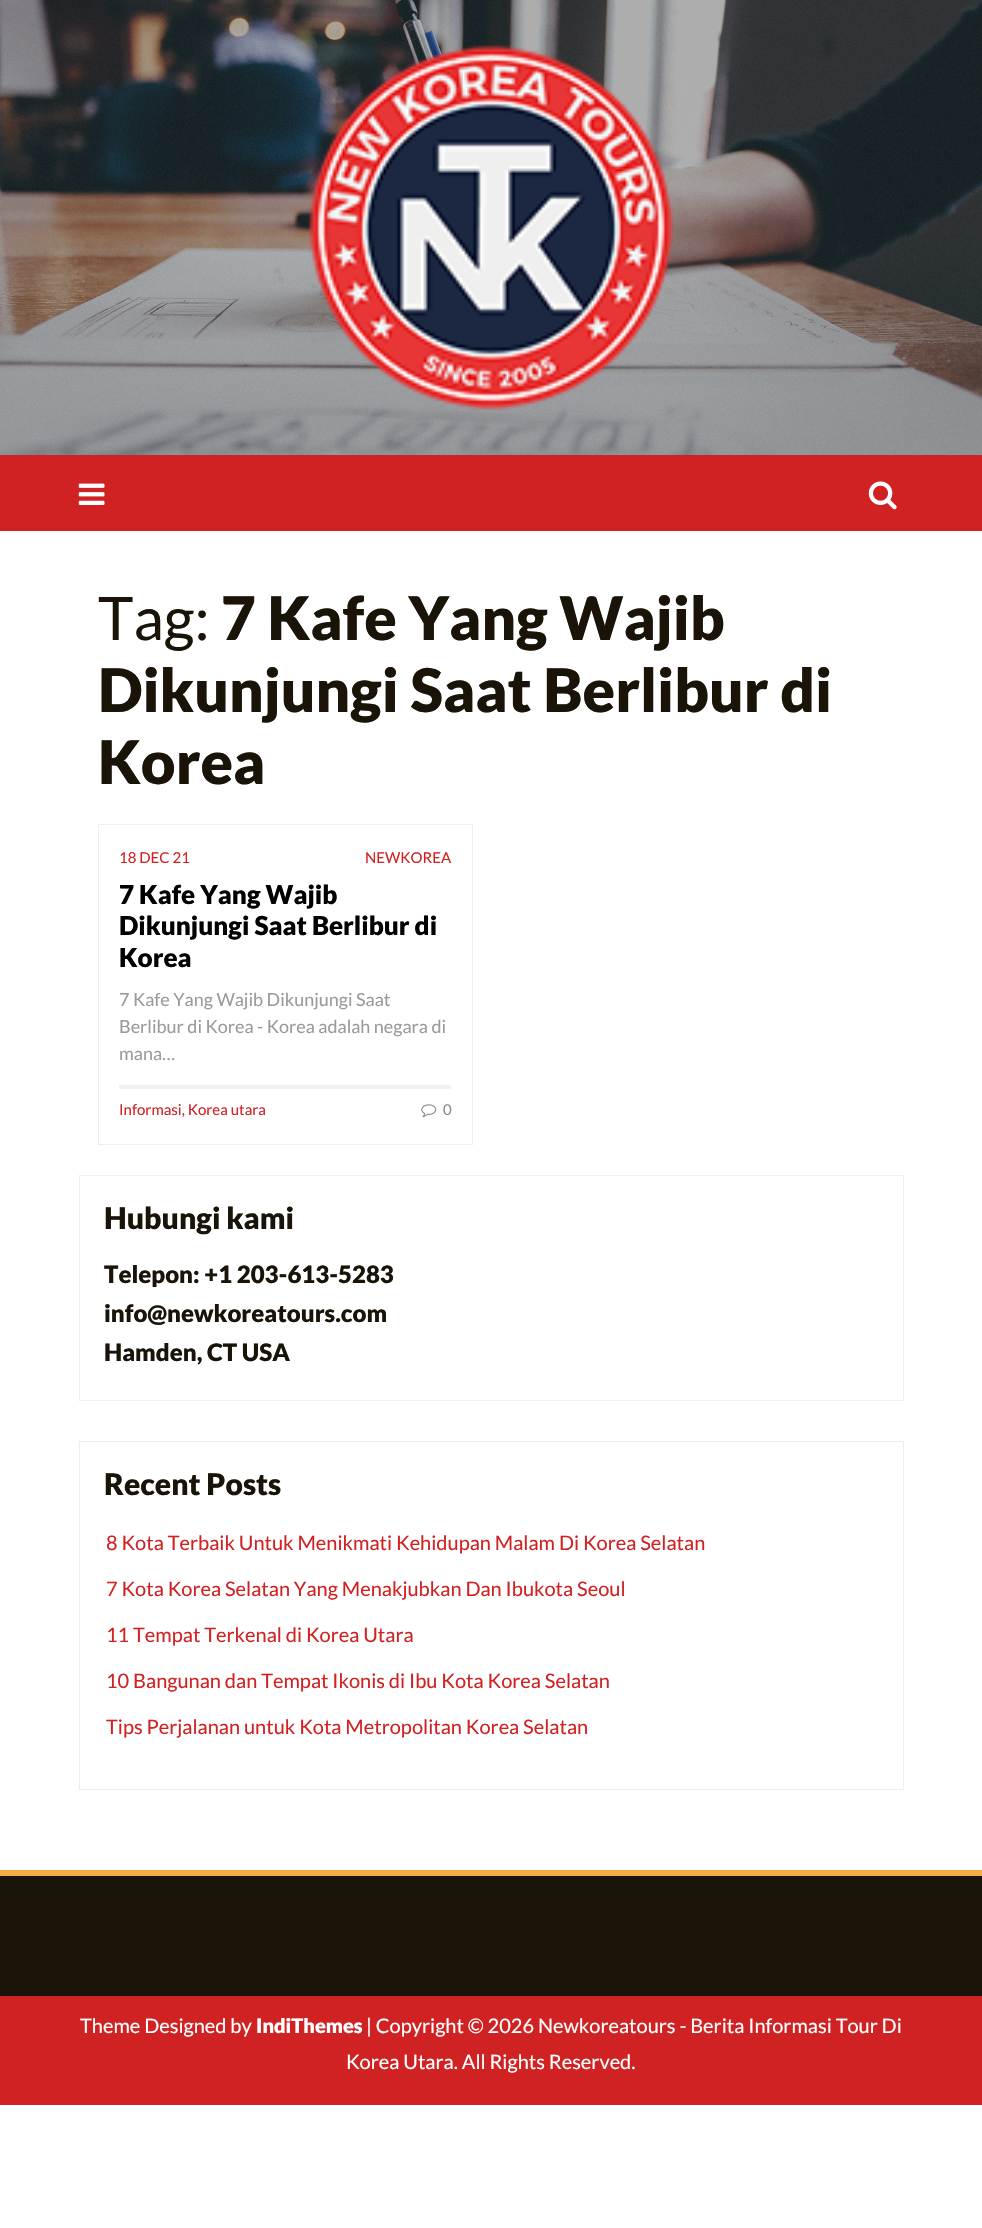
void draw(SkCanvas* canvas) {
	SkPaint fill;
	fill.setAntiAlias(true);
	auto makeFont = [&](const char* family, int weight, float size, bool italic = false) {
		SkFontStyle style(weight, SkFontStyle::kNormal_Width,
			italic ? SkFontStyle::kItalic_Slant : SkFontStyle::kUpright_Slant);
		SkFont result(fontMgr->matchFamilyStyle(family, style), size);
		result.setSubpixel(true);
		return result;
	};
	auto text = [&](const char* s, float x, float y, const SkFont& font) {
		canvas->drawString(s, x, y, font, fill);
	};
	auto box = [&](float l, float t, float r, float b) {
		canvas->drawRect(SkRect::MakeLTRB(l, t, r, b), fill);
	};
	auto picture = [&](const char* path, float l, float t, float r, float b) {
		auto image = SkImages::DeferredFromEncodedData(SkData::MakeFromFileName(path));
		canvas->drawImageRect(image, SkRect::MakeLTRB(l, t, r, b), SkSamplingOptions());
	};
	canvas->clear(0xFFFFFFFF);
	picture("image0.png", 0, 0, 982, 455);
	picture("image1.png", 308, 45, 674, 411);
	fill.setColor(0xFFD12223);
	box(0, 455, 982, 531);
	picture("image2.png", 78, 483, 105, 505);
	picture("image3.png", 868, 481, 897, 510);
	fill.setStyle(SkPaint::kStroke_Style);
	fill.setStrokeWidth(1);
	fill.setColor(0xFFEEEEEE);
	canvas->drawRect(SkRect::MakeLTRB(98.5f, 824.5f, 472.5f, 1144.5f), fill);
	fill.setStyle(SkPaint::kFill_Style);
	fill.setColor(0xFFF1F1F1);
	box(119, 1085, 451, 1089);
	picture("image4.png", 421, 1104, 437, 1118);
	fill.setStyle(SkPaint::kStroke_Style);
	fill.setColor(0xFFEEEEEE);
	canvas->drawRect(SkRect::MakeLTRB(79.5f, 1175.5f, 903.5f, 1400.5f), fill);
	canvas->drawRect(SkRect::MakeLTRB(79.5f, 1441.5f, 903.5f, 1789.5f), fill);
	fill.setStyle(SkPaint::kFill_Style);
	fill.setColor(0xFF191308);
	box(0, 1876, 982, 1996);
	fill.setColor(0xFFF4AC45);
	box(0, 1870, 982, 1876);
	fill.setColor(0xFFD12223);
	box(0, 1996, 982, 2105);
	auto font1 = makeFont("Lato", 400, 60);
	fill.setColor(0xFF191308);
	text("Tag:", 98, 640, font1);
	auto font2 = makeFont("Lato", 900, 60);
	text("7 Kafe Yang Wajib", 221, 640, font2);
	text("Dikunjungi Saat Berlibur di", 98, 712, font2);
	text("Korea", 98, 784, font2);
	auto font3 = makeFont("Lato", 400, 15);
	fill.setColor(0xFFD12223);
	text("18 DEC 21", 119, 863, font3);
	text("NEWKOREA", 365, 863, font3);
	auto font4 = makeFont("Lato", 900, 26);
	fill.setColor(0xFF000000);
	text("7 Kafe Yang Wajib", 119, 904, font4);
	text("Dikunjungi Saat Berlibur di", 119, 935, font4);
	text("Korea", 119, 967, font4);
	auto font5 = makeFont("Lato", 400, 18);
	fill.setColor(0xFF9A9A9A);
	text("7 Kafe Yang Wajib Dikunjungi Saat", 119, 1006, font5);
	text("Berlibur di Korea - Korea adalah negara di", 119, 1033, font5);
	text("mana…", 119, 1060, font5);
	fill.setColor(0xFFD12223);
	text("Informasi, Korea utara", 119, 1115, font3);
	fill.setColor(0xFF888888);
	text("0", 443, 1115, font3);
	auto font6 = makeFont("Lato", 900, 30);
	fill.setColor(0xFF191308);
	text("Hubungi kami", 104, 1229, font6);
	auto font7 = makeFont("Lato", 900, 24);
	text("Telepon: +1 203-613-5283", 104, 1283, font7);
	text("info@newkoreatours.com", 104, 1322, font7);
	text("Hamden, CT USA", 104, 1361, font7);
	text("Recent Posts", 104, 1495, font6);
	auto font8 = makeFont("Lato", 400, 20);
	fill.setColor(0xFFD12223);
	text("8 Kota Terbaik Untuk Menikmati Kehidupan Malam Di Korea Selatan", 106, 1550, font8);
	text("7 Kota Korea Selatan Yang Menakjubkan Dan Ibukota Seoul", 106, 1596, font8);
	text("11 Tempat Terkenal di Korea Utara", 106, 1642, font8);
	text("10 Bangunan dan Tempat Ikonis di Ibu Kota Korea Selatan", 106, 1688, font8);
	text("Tips Perjalanan untuk Kota Metropolitan Korea Selatan", 106, 1734, font8);
	fill.setColor(0xFFFFFFFF);
	text("Theme Designed by", 80, 2033, font8);
	auto font9 = makeFont("Lato", 900, 20);
	text("IndiThemes", 256, 2033, font9);
	text("| Copyright © 2026 Newkoreatours - Berita Informasi Tour Di", 366, 2033, font8);
	text("Korea Utara. All Rights Reserved.", 346, 2069, font8);
}
